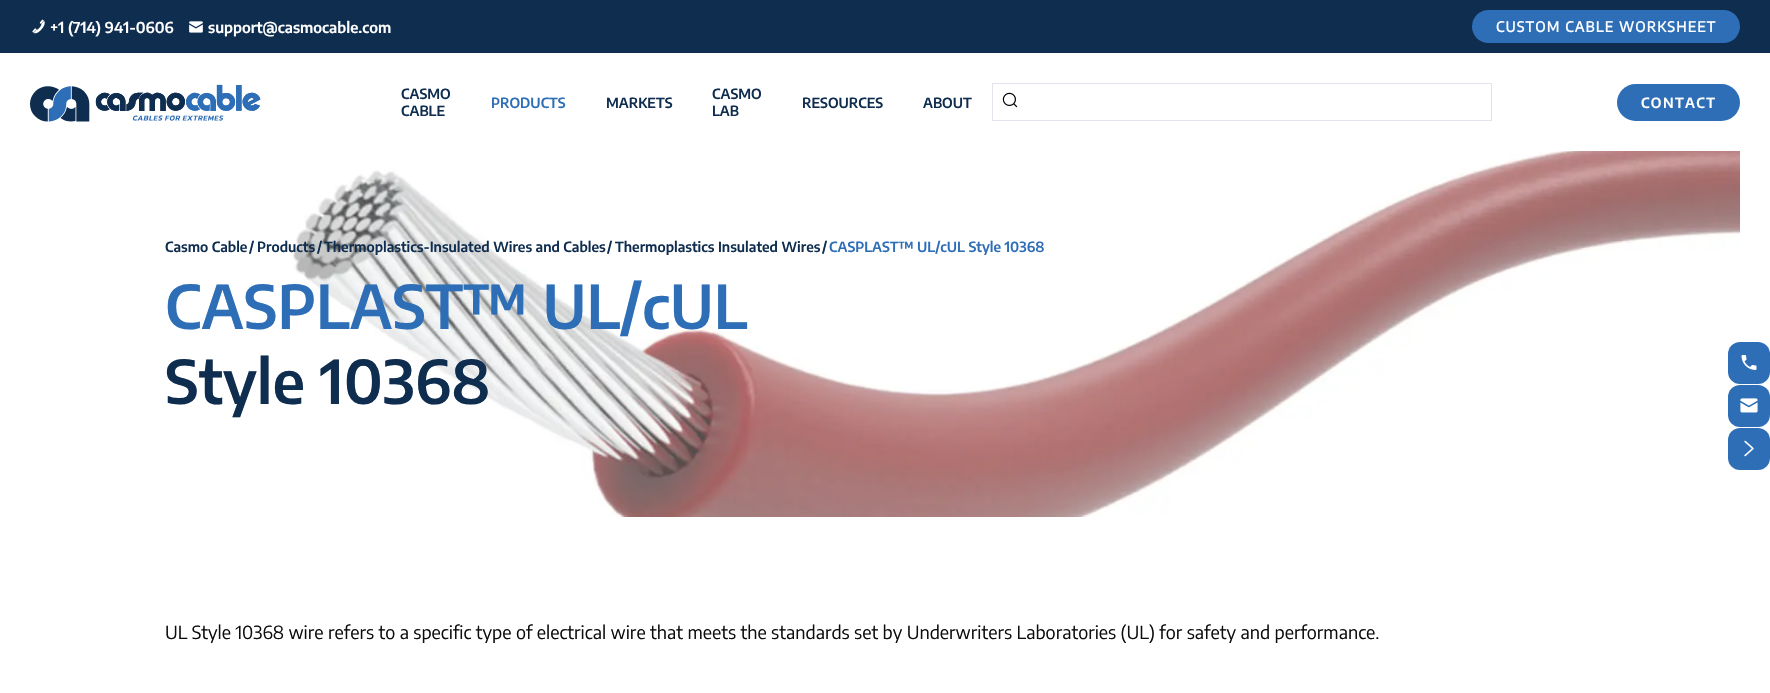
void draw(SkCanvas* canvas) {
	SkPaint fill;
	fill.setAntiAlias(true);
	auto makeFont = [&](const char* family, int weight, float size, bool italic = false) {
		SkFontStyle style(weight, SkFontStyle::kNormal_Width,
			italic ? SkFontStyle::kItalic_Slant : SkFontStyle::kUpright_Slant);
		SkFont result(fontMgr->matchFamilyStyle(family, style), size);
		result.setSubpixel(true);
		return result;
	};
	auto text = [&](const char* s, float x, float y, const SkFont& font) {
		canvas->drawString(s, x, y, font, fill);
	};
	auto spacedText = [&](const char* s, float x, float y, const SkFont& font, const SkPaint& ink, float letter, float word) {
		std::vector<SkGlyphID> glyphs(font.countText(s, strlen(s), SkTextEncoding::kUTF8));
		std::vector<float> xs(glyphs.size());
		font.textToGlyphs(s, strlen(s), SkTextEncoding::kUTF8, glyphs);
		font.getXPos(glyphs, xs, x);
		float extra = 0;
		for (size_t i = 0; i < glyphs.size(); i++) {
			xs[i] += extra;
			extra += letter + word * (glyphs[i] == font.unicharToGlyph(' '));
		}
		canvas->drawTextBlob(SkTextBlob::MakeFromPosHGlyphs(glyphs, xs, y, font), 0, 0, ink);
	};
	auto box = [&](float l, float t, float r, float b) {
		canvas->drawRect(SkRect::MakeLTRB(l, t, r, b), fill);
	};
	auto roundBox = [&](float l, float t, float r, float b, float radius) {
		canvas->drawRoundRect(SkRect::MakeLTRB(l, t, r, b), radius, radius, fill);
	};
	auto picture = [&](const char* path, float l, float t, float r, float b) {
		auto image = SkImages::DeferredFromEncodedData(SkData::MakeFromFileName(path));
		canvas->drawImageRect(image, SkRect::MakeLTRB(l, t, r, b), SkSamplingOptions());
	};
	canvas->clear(0xFFFFFFFF);
	fill.setColor(0xFF0F2D4F);
	box(0, 0, 1770, 53);
	picture("image0.png", 32, 19, 45, 34);
	picture("image1.png", 189, 21, 203, 33);
	fill.setColor(0xFF2D6EB7);
	roundBox(1472, 10, 1740, 43, 16.5f);
	picture("image2.png", 30, 84, 261, 122);
	fill.setStyle(SkPaint::kStroke_Style);
	fill.setStrokeWidth(1);
	fill.setColor(0xFFE1E5EB);
	canvas->drawRect(SkRect::MakeLTRB(992.5f, 83.5f, 1491.5f, 120.5f), fill);
	picture("image3.png", 1002, 92, 1018, 108);
	fill.setStyle(SkPaint::kFill_Style);
	fill.setColor(0xFF2D6EB7);
	roundBox(1617, 84, 1740, 121, 18.5f);
	picture("image4.png", 291, 151, 1740, 517);
	roundBox(1728, 342, 1770, 384, 12);
	picture("image5.png", 1741, 355, 1757, 370);
	roundBox(1728, 385, 1770, 427, 12);
	picture("image6.png", 1740, 398, 1758, 413);
	roundBox(1728, 428, 1770, 470, 12);
	picture("image7.png", 1744, 440, 1754, 457);
	auto font1 = makeFont("Encode Sans", 600, 15);
	fill.setColor(0xFFFFFFFF);
	text("+1 (714) 941-0606", 50, 33, font1);
	text("support@casmocable.com", 208, 33, font1);
	auto font2 = makeFont("Encode Sans", 700, 14);
	spacedText("CUSTOM CABLE WORKSHEET", 1496, 32, font2, fill, 1.4f, 0);
	auto font3 = makeFont("Encode Sans", 600, 14);
	fill.setColor(0xFF0F2D4F);
	text("CASMO", 401, 99, font3);
	text("CABLE", 401, 116, font3);
	fill.setColor(0xFF2D6EB7);
	text("PRODUCTS", 491, 108, font3);
	fill.setColor(0xFF0F2D4F);
	text("MARKETS", 606, 108, font3);
	text("CASMO", 712, 99, font3);
	text("LAB", 712, 116, font3);
	text("RESOURCES", 802, 108, font3);
	text("ABOUT", 923, 108, font3);
	fill.setColor(0xFFFFFFFF);
	spacedText("CONTACT", 1641, 108, font3, fill, 1.4f, 0);
	fill.setColor(0xFF0F2D4F);
	text("Casmo Cable", 165, 252, font3);
	text("/", 249, 252, font3);
	text("Products", 257, 252, font3);
	text("/", 317, 252, font3);
	text("Thermoplastics-Insulated Wires and Cables", 324, 252, font3);
	text("/", 607, 252, font3);
	text("Thermoplastics Insulated Wires", 615, 252, font3);
	text("/", 822, 252, font3);
	fill.setColor(0xFF2D6EB7);
	text("CASPLAST™ UL/cUL Style 10368", 829, 252, font3);
	auto font4 = makeFont("Encode Sans", 600, 60);
	text("CASPLAST™ UL/cUL", 165, 329, font4);
	fill.setColor(0xFF0F2D4F);
	text("Style 10368", 165, 404, font4);
	auto font5 = makeFont("Encode Sans", 400, 18);
	fill.setColor(0xFF0D0D0D);
	text("UL Style 10368 wire refers to a specific type of electrical wire that meets the standards set by Underwriters Laboratories (UL) for safety and performance.", 165, 639, font5);
}
